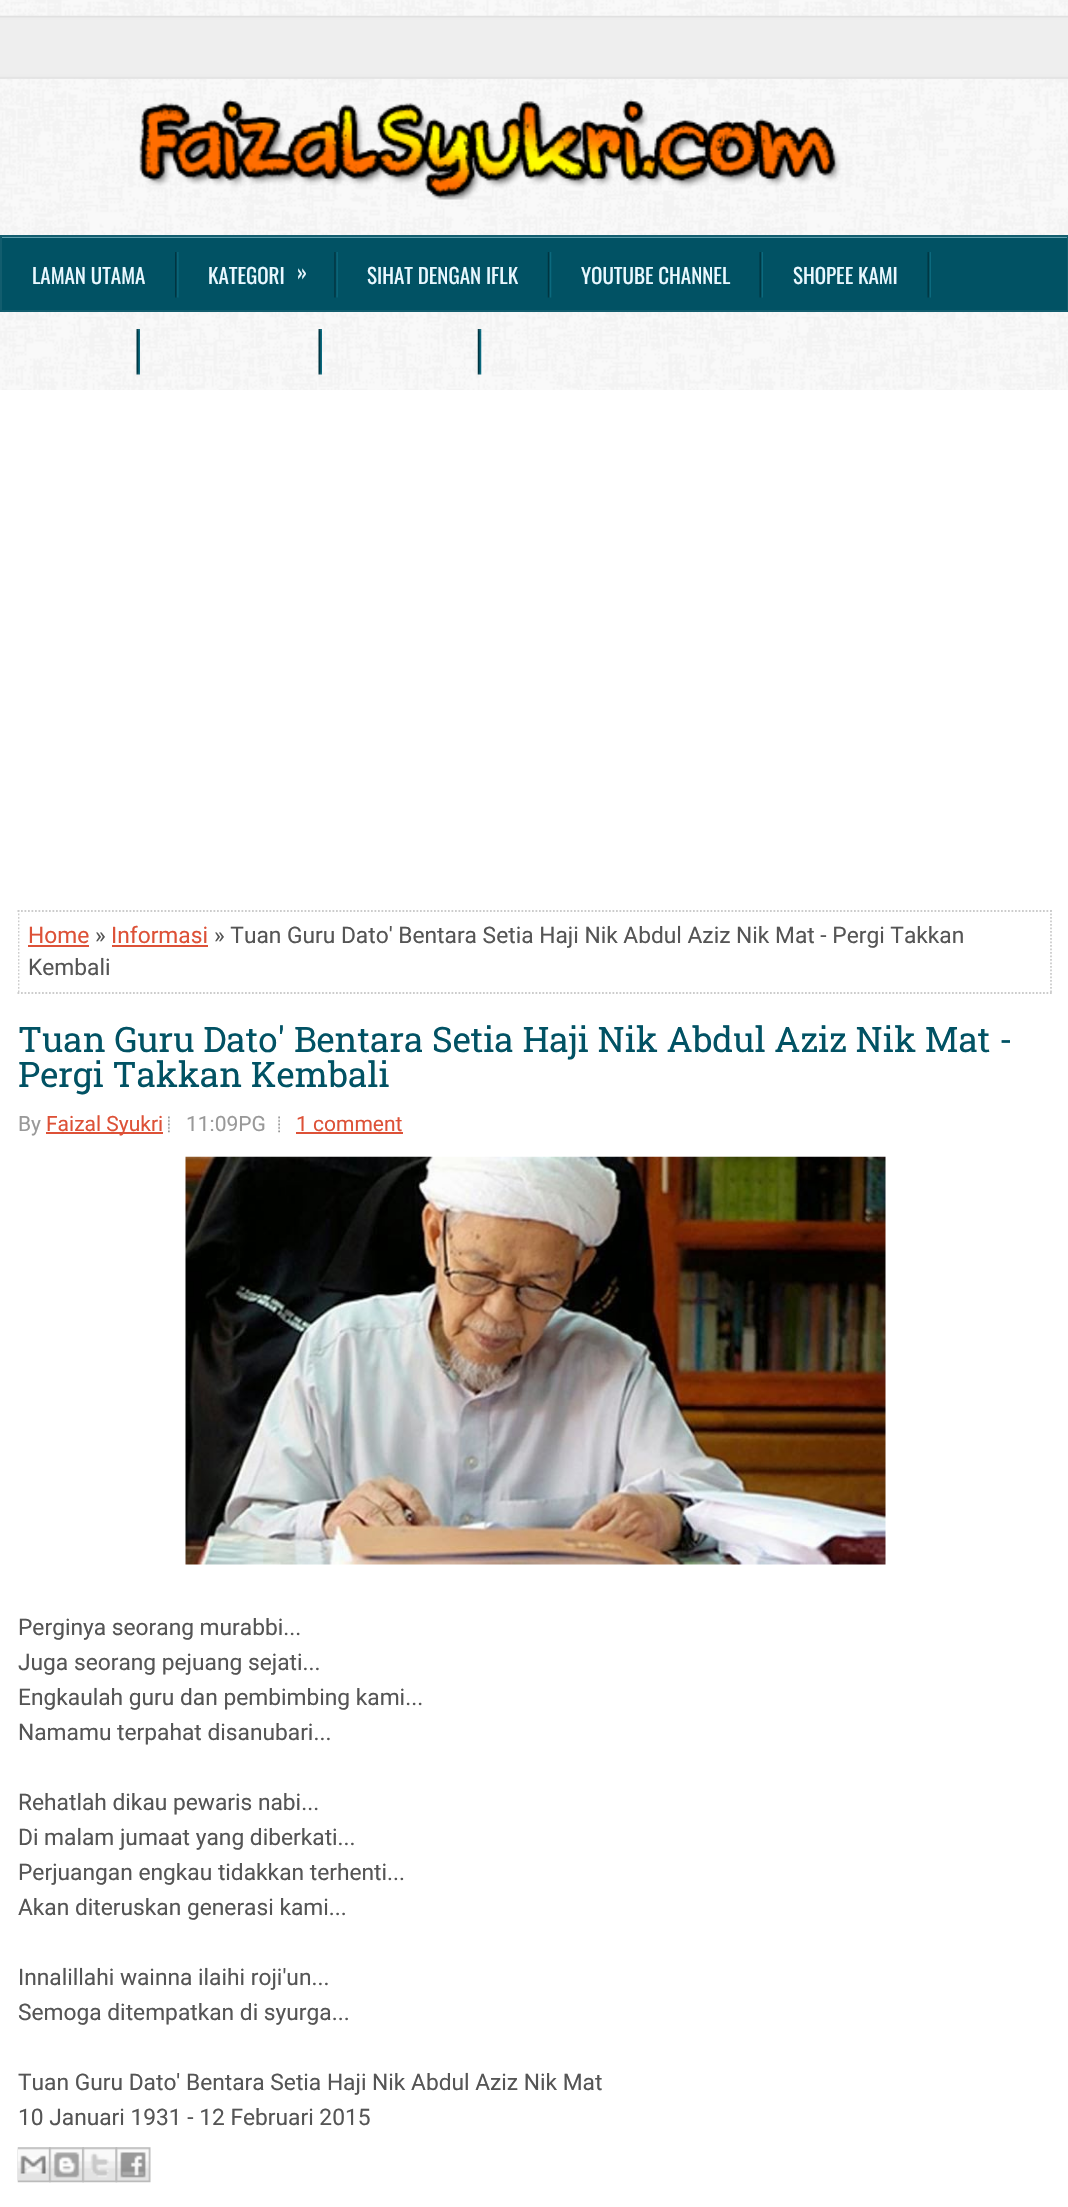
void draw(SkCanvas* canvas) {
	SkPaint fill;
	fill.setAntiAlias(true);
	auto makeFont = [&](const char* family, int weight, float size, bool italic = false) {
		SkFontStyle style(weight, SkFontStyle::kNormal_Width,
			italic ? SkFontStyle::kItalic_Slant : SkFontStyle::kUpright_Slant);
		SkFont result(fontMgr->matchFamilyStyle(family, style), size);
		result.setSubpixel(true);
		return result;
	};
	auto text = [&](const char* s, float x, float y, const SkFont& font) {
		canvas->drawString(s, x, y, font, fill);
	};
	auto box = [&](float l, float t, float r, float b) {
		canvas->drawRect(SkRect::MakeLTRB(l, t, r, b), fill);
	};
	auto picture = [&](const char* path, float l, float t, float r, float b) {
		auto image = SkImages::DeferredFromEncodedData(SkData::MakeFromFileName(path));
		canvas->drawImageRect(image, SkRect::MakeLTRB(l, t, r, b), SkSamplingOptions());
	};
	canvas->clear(0xFFFFFFFF);
	picture("image0.png", 0, 0, 1068, 390);
	picture("image1.png", 139, 99, 841, 200);
	fill.setColor(0xFF015264);
	box(2, 238, 1067, 310);
	fill.setColor(0xFF619FAD);
	box(2, 237, 1068, 238);
	fill.setStyle(SkPaint::kStroke_Style);
	fill.setStrokeWidth(2);
	fill.setColor(0xFF125D6E);
	canvas->drawRect(SkRect::MakeLTRB(1, 236, 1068, 311), fill);
	picture("image2.png", 175, 252, 179, 298);
	picture("image3.png", 334, 252, 338, 298);
	picture("image4.png", 547, 252, 552, 298);
	picture("image5.png", 759, 252, 763, 298);
	picture("image5.png", 927, 252, 931, 298);
	picture("image6.png", 136, 329, 140, 375);
	picture("image7.png", 318, 329, 322, 375);
	picture("image8.png", 477, 329, 482, 375);
	fill.setStrokeWidth(1.8f);
	fill.setColor(0xFFCCCCCC);
	fill.setPathEffect(SkDashPathEffect::Make({{1.75f, 1.75f}}, 0));
	canvas->drawPath(SkPathBuilder().moveTo(17.5f, 911).lineTo(1052, 911).detach(), fill);
	fill.setPathEffect(nullptr);
	fill.setPathEffect(SkDashPathEffect::Make({{1.75f, 1.75f}}, 0));
	canvas->drawPath(SkPathBuilder().moveTo(1051, 910).lineTo(1051, 994).detach(), fill);
	fill.setPathEffect(nullptr);
	fill.setPathEffect(SkDashPathEffect::Make({{1.75f, 1.75f}}, 0));
	canvas->drawPath(SkPathBuilder().moveTo(17.5f, 993).lineTo(1052, 993).detach(), fill);
	fill.setPathEffect(nullptr);
	canvas->save();
	canvas->clipRect(SkRect::MakeLTRB(18, 408, 1052, 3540));
	fill.setPathEffect(SkDashPathEffect::Make({{1.75f, 1.75f}}, 0));
	canvas->drawPath(SkPathBuilder().moveTo(18.5f, 910).lineTo(18.5f, 994).detach(), fill);
	fill.setPathEffect(nullptr);
	canvas->restore();
	fill.setStyle(SkPaint::kFill_Style);
	fill.setColor(0xFFDD5137);
	box(28, 945, 89, 947);
	box(112, 945, 208, 947);
	box(46, 1132, 163, 1134);
	picture("image9.png", 168, 1116, 170, 1133);
	picture("image10.png", 278, 1116, 280, 1133);
	box(296, 1132, 403, 1134);
	picture("image11.png", 185, 1156, 886, 1565);
	picture("image12.png", 17, 2147, 51, 2183);
	picture("image13.png", 49, 2147, 84, 2183);
	picture("image14.png", 82, 2147, 118, 2183);
	picture("image15.png", 115, 2147, 151, 2183);
	auto font1 = makeFont("Oswald", 400, 21);
	fill.setColor(0xFFE9F8FF);
	text("LAMAN UTAMA", 32, 284, font1);
	text("KATEGORI", 208, 284, font1);
	text("»", 297, 280, font1);
	text("SIHAT DENGAN IFLK", 367, 284, font1);
	text("YOUTUBE CHANNEL", 581, 284, font1);
	text("SHOPEE KAMI", 793, 284, font1);
	auto font2 = makeFont("Roboto", 400, 22.75f);
	fill.setColor(0xFFDD5137);
	text("Home", 28, 943, font2);
	fill.setColor(0xFF555555);
	text("»", 95, 943, font2);
	fill.setColor(0xFFDD5137);
	text("Informasi", 111, 943, font2);
	fill.setColor(0xFF555555);
	text("» Tuan Guru Dato' Bentara Setia Haji Nik Abdul Aziz Nik Mat - Pergi Takkan", 214, 943, font2);
	text("Kembali", 28, 975, font2);
	auto font3 = makeFont("Roboto Slab", 400, 35);
	fill.setColor(0xFF015264);
	text("Tuan Guru Dato' Bentara Setia Haji Nik Abdul Aziz Nik Mat -", 18, 1052, font3);
	text("Pergi Takkan Kembali", 18, 1087, font3);
	auto font4 = makeFont("Roboto", 400, 21);
	fill.setColor(0xFF999999);
	text("By", 18, 1131, font4);
	fill.setColor(0xFFDD5137);
	text("Faizal Syukri", 46, 1131, font4);
	fill.setColor(0xFF999999);
	text("11:09 PG", 186, 1131, font4);
	fill.setColor(0xFFDD5137);
	text("1 comment", 296, 1131, font4);
	fill.setColor(0xFF555555);
	text("Perginya seorang murabbi...", 18, 1635, font2);
	text("Juga seorang pejuang sejati...", 18, 1670, font2);
	text("Engkaulah guru dan pembimbing kami...", 18, 1705, font2);
	text("Namamu terpahat disanubari...", 18, 1740, font2);
	text("Rehatlah dikau pewaris nabi...", 18, 1810, font2);
	text("Di malam jumaat yang diberkati...", 18, 1845, font2);
	text("Perjuangan engkau tidakkan terhenti...", 18, 1880, font2);
	text("Akan diteruskan generasi kami...", 18, 1915, font2);
	text("Innalillahi wainna ilaihi roji'un...", 18, 1985, font2);
	text("Semoga ditempatkan di syurga...", 18, 2020, font2);
	text("Tuan Guru Dato' Bentara Setia Haji Nik Abdul Aziz Nik Mat", 18, 2090, font2);
	text("10 Januari 1931 - 12 Februari 2015", 18, 2125, font2);
}
